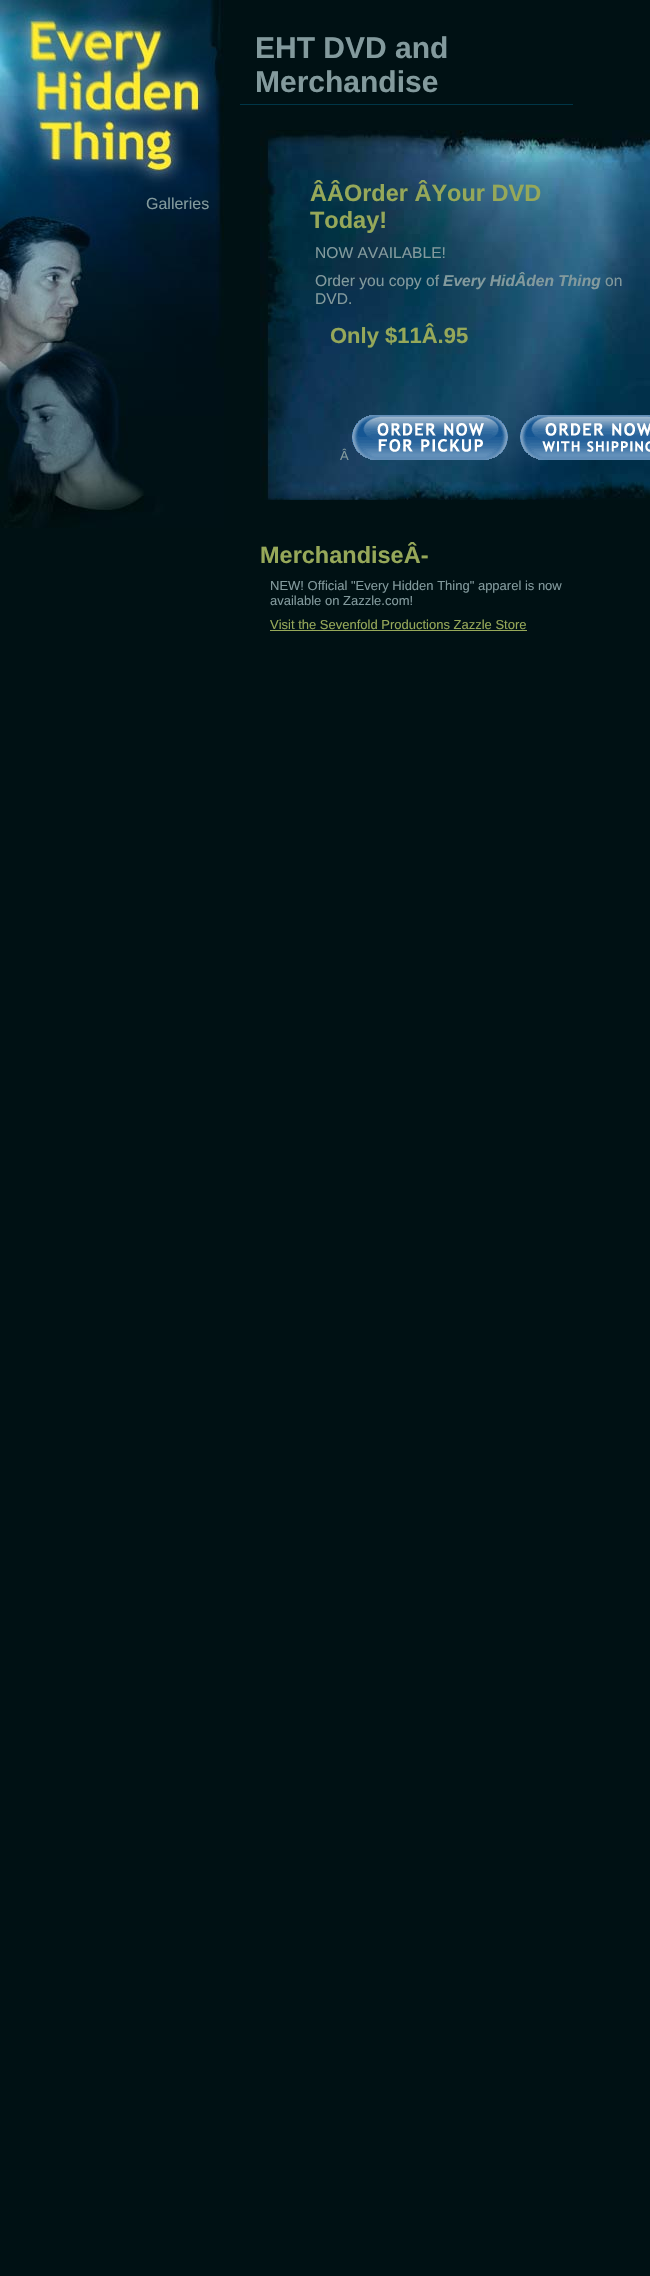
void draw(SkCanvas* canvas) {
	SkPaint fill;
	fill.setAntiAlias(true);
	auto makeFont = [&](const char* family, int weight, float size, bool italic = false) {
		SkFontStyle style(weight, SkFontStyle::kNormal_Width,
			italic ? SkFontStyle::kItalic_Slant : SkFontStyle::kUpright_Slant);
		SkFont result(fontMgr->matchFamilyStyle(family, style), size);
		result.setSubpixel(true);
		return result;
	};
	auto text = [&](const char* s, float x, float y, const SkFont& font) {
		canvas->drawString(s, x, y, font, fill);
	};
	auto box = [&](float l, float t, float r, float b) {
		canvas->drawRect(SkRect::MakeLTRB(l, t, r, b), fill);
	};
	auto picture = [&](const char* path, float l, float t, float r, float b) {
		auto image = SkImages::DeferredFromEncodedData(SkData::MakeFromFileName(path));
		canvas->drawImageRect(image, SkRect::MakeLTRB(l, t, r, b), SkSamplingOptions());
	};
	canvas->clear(0xFF001114);
	picture("image0.png", 0, 0, 224, 528);
	fill.setColor(0xFF003647);
	box(240, 104, 573, 105);
	picture("image1.png", 260, 130, 650, 500);
	picture("image2.png", 352, 415, 508, 460);
	picture("image3.png", 520, 415, 650, 460);
	fill.setColor(0xFF96A859);
	box(270, 630, 527, 631);
	auto font1 = makeFont("Liberation Sans", 400, 16);
	fill.setColor(0xFF839A9D);
	text("Galleries", 146, 209, font1);
	auto font2 = makeFont("Liberation Sans", 700, 30);
	text("EHT DVD and", 255, 58, font2);
	text("Merchandise", 255, 92, font2);
	auto font3 = makeFont("Liberation Sans", 700, 23.5f);
	fill.setColor(0xFF96A859);
	text("ÂÂOrder ÂYour DVD", 310, 201, font3);
	text("Today!", 310, 228, font3);
	auto font4 = makeFont("Liberation Sans", 400, 15.6f);
	fill.setColor(0xFF839A9D);
	text("NOW AVAILABLE!", 315, 258, font4);
	text("Order you copy of", 315, 286, font4);
	auto font5 = makeFont("Liberation Sans", 700, 15.6f, true);
	text("Every HidÂden Thing", 443, 286, font5);
	text("on", 605, 286, font4);
	text("DVD.", 315, 304, font4);
	auto font6 = makeFont("Liberation Sans", 700, 22);
	fill.setColor(0xFF96A859);
	text("Only $11Â.95", 330, 343, font6);
	auto font7 = makeFont("Liberation Sans", 400, 13);
	fill.setColor(0xFF839A9D);
	text("Â", 340, 460, font7);
	fill.setColor(0xFF96A859);
	text("MerchandiseÂ-", 260, 563, font3);
	fill.setColor(0xFF839A9D);
	text("NEW! Official \"Every Hidden Thing\" apparel is now", 270, 590, font7);
	text("available on Zazzle.com!", 270, 605, font7);
	fill.setColor(0xFF96A859);
	text("Visit the Sevenfold Productions Zazzle Store", 270, 629, font7);
}
